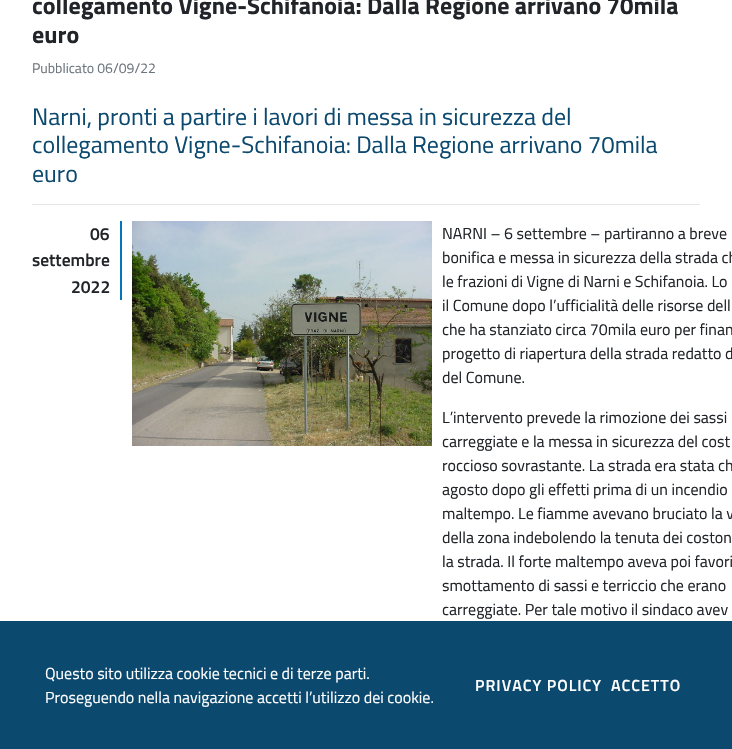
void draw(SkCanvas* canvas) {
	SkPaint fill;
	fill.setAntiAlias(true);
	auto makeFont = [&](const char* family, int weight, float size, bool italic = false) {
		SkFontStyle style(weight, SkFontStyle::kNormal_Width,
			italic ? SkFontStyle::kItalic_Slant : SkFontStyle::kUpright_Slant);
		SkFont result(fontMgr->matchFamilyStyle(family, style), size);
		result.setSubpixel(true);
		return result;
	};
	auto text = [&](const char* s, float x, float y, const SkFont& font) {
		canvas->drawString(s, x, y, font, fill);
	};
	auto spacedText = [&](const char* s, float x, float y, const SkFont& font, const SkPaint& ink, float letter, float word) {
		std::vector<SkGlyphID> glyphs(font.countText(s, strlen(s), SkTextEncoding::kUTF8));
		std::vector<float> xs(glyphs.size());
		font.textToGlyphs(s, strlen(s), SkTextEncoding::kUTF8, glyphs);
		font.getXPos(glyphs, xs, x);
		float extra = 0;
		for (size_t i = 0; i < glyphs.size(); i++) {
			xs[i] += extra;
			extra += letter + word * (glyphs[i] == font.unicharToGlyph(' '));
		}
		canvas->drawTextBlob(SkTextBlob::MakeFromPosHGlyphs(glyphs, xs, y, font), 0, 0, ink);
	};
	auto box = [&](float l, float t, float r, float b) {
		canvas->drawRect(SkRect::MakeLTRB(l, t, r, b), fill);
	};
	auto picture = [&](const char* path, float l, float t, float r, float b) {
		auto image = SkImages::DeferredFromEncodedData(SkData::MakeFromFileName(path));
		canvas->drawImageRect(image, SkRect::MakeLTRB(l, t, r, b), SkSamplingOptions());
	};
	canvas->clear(0xFFFFFFFF);
	fill.setColor(0xFFE6E6E6);
	box(32, 204, 700, 205);
	fill.setColor(0xFF0276BA);
	box(120, 221, 122, 300);
	picture("image0.png", 132, 221, 432, 446);
	fill.setColor(0xFF0C496F);
	box(0, 621, 732, 749);
	auto font1 = makeFont("Titillium Web", 700, 24);
	fill.setColor(0xFF212529);
	text("collegamento Vigne-Schifanoia: Dalla Regione arrivano 70mila", 32, 14, font1);
	text("euro", 32, 43, font1);
	auto font2 = makeFont("Titillium Web", 400, 14);
	fill.setColor(0xFF6C757D);
	text("Pubblicato 06/09/22", 32, 73, font2);
	auto font3 = makeFont("Titillium Web", 400, 24);
	fill.setColor(0xFF0C496F);
	text("Narni, pronti a partire i lavori di messa in sicurezza del", 32, 125, font3);
	text("collegamento Vigne-Schifanoia: Dalla Regione arrivano 70mila", 32, 153, font3);
	text("euro", 32, 182, font3);
	auto font4 = makeFont("Titillium Web", 600, 17.5f);
	fill.setColor(0xFF212529);
	text("06", 90, 240, font4);
	text("settembre", 32, 266, font4);
	text("2022", 71, 293, font4);
	auto font5 = makeFont("Titillium Web", 400, 16);
	text("NARNI – 6 settembre – partiranno a breve", 442, 239, font5);
	text("bonifica e messa in sicurezza della strada ch", 442, 263, font5);
	text("le frazioni di Vigne di Narni e Schifanoia. Lo", 442, 287, font5);
	text("il Comune dopo l’ufficialità delle risorse dell", 442, 311, font5);
	text("che ha stanziato circa 70mila euro per finan", 442, 335, font5);
	text("progetto di riapertura della strada redatto d", 442, 359, font5);
	text("del Comune.", 442, 383, font5);
	text("L’intervento prevede la rimozione dei sassi", 442, 423, font5);
	text("carreggiate e la messa in sicurezza del cost", 442, 447, font5);
	text("roccioso sovrastante. La strada era stata ch", 442, 471, font5);
	text("agosto dopo gli effetti prima di un incendio", 442, 495, font5);
	text("maltempo. Le fiamme avevano bruciato la v", 442, 519, font5);
	text("della zona indebolendo la tenuta dei coston", 442, 543, font5);
	text("la strada. Il forte maltempo aveva poi favori", 442, 567, font5);
	text("smottamento di sassi e terriccio che erano", 442, 591, font5);
	text("carreggiate. Per tale motivo il sindaco avev", 442, 615, font5);
	fill.setColor(0xFFFFFFFF);
	text("Questo sito utilizza cookie tecnici e di terze parti.", 45, 679, font5);
	text("Proseguendo nella navigazione accetti l’utilizzo dei cookie.", 45, 703, font5);
	auto font6 = makeFont("Titillium Web", 600, 16);
	spacedText("PRIVACY POLICY", 475, 691, font6, fill, 1, 0);
	spacedText("ACCETTO", 611, 691, font6, fill, 1, 0);
}
